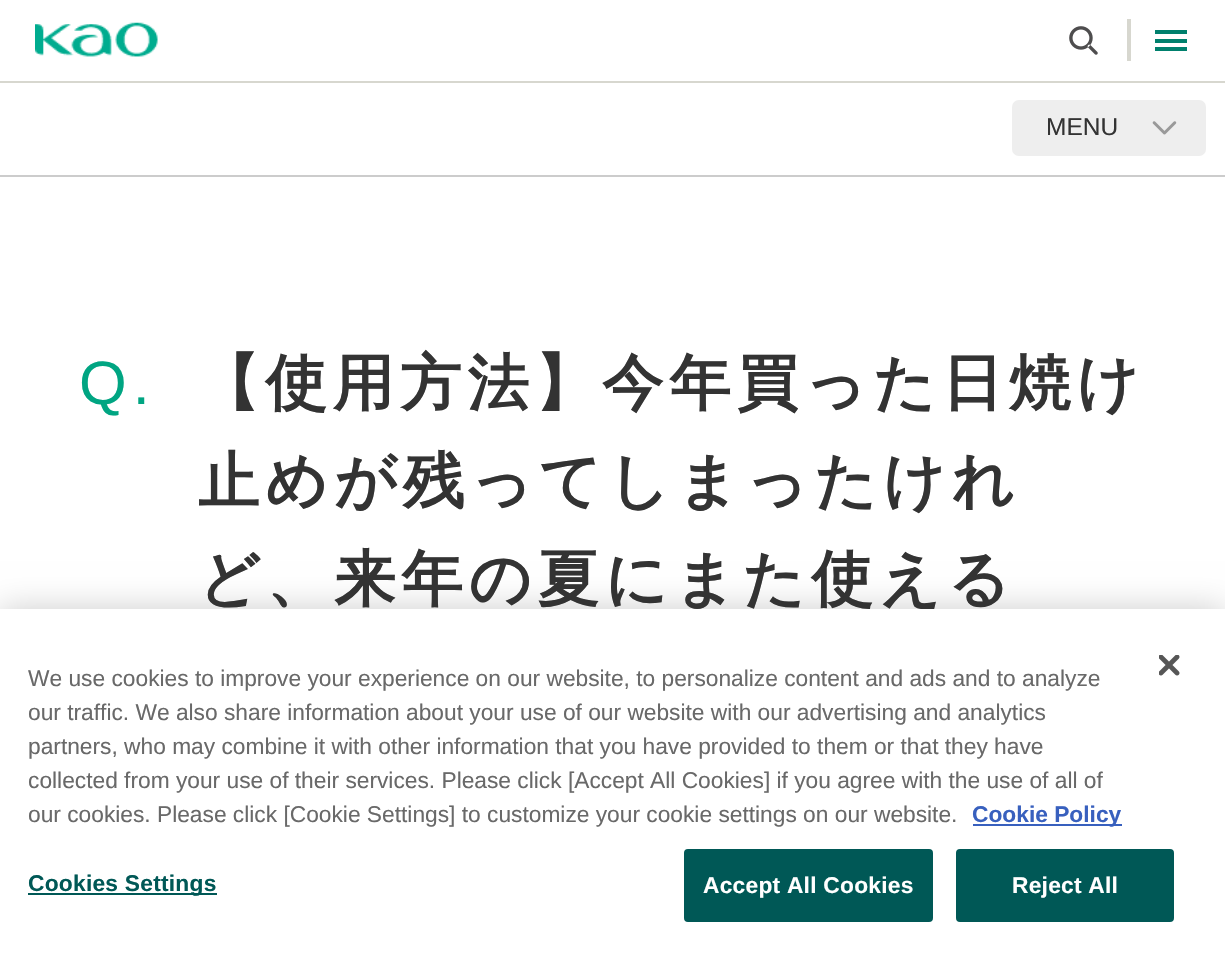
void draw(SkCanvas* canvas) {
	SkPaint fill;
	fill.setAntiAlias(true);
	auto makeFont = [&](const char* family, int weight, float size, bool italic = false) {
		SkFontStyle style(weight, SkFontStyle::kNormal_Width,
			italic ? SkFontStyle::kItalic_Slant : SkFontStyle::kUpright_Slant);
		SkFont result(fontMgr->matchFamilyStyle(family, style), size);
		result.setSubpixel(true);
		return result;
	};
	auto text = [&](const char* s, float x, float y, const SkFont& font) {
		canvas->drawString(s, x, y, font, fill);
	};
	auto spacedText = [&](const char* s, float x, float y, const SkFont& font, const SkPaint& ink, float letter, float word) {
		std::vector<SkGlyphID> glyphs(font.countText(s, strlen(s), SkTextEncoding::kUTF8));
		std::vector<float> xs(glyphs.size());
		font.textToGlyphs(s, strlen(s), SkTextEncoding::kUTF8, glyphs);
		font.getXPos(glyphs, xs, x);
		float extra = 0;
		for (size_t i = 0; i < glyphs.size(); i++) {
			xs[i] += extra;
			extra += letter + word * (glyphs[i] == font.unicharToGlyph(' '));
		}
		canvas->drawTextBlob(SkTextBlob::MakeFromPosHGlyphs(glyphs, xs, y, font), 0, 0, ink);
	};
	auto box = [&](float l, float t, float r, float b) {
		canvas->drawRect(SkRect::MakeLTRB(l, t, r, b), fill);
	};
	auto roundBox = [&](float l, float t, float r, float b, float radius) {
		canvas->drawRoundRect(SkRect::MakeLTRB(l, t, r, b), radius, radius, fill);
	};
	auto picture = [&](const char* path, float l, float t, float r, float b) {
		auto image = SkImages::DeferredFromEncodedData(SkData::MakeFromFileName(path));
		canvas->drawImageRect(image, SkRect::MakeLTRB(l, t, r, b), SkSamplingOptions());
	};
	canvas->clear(0xFFFFFFFF);
	fill.setColor(0xFFD7D7CF);
	box(0, 81, 1225, 83);
	picture("image0.png", 35, 22, 158, 57);
	box(1127, 19, 1131, 61);
	picture("image1.png", 1069, 26, 1098, 55);
	fill.setColor(0xFF00806D);
	box(1155, 30, 1187, 34);
	box(1155, 39, 1187, 43);
	box(1155, 47, 1187, 51);
	fill.setColor(0xFFCCCCCC);
	box(0, 175, 1225, 177);
	fill.setColor(0xFFEEEEEE);
	roundBox(1012, 100, 1206, 156, 7);
	picture("image2.png", 1152, 121, 1177, 135);
	fill.setColor(0x33000000);
	fill.setMaskFilter(SkMaskFilter::MakeBlur(kNormal_SkBlurStyle, 16));
	canvas->drawRect(SkRect::MakeLTRB(0, 609, 1225, 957), fill);
	fill.setMaskFilter(nullptr);
	auto font1 = makeFont("Liberation Sans", 400, 24.5f);
	fill.setColor(0xFF333333);
	text("MENU", 1046, 135, font1);
	auto font2 = makeFont("Liberation Sans", 400, 61.25f);
	fill.setColor(0xFF00A582);
	spacedText("Q.", 79, 404, font2, fill, 6.1f, 0);
	auto font3 = makeFont("WenQuanYi Zen Hei", 700, 61.25f);
	fill.setColor(0xFF333333);
	spacedText("【使用方法】今年買った日焼け", 198, 404, font3, fill, 6.1f, 0);
	spacedText("止めが残ってしまったけれ", 198, 502, font3, fill, 6.1f, 0);
	spacedText("ど、来年の夏にまた使える", 198, 600, font3, fill, 6.1f, 0);
	fill.setColor(0xFFFFFFFF);
	box(0, 609, 1225, 956);
	picture("image3.png", 1159, 655, 1180, 676);
	auto font4 = makeFont("Liberation Sans", 400, 22.75f);
	fill.setColor(0xFF696969);
	text("We use cookies to improve your experience on our website, to personalize content and ads and to analyze", 28, 686, font4);
	text("our traffic. We also share information about your use of our website with our advertising and analytics", 28, 720, font4);
	text("partners, who may combine it with other information that you have provided to them or that they have", 28, 754, font4);
	text("collected from your use of their services. Please click [Accept All Cookies] if you agree with the use of all of", 28, 788, font4);
	text("our cookies. Please click [Cookie Settings] to customize your cookie settings on our website.", 28, 822, font4);
	fill.setColor(0xFF3860BE);
	box(973, 824, 1122, 826);
	auto font5 = makeFont("Liberation Sans", 700, 22.75f);
	text("Cookie Policy", 972, 822, font5);
	fill.setColor(0xFF005856);
	box(28, 893, 217, 895);
	spacedText("Cookies Settings", 28, 891, font5, fill, 0.25f, 0);
	canvas->drawRoundRect(SkRect::MakeLTRB(685, 850, 932, 921), 3, 3, fill);
	fill.setStyle(SkPaint::kStroke_Style);
	fill.setStrokeWidth(2);
	canvas->drawRoundRect(SkRect::MakeLTRB(685, 850, 932, 921), 3, 3, fill);
	fill.setStyle(SkPaint::kFill_Style);
	fill.setColor(0xFFFFFFFF);
	spacedText("Accept All Cookies", 703, 893, font5, fill, 0.25f, 0);
	fill.setColor(0xFF005856);
	canvas->drawRoundRect(SkRect::MakeLTRB(957, 850, 1173, 921), 3, 3, fill);
	fill.setStyle(SkPaint::kStroke_Style);
	canvas->drawRoundRect(SkRect::MakeLTRB(957, 850, 1173, 921), 3, 3, fill);
	fill.setStyle(SkPaint::kFill_Style);
	fill.setColor(0xFFFFFFFF);
	spacedText("Reject All", 1012, 893, font5, fill, 0.25f, 0);
}
